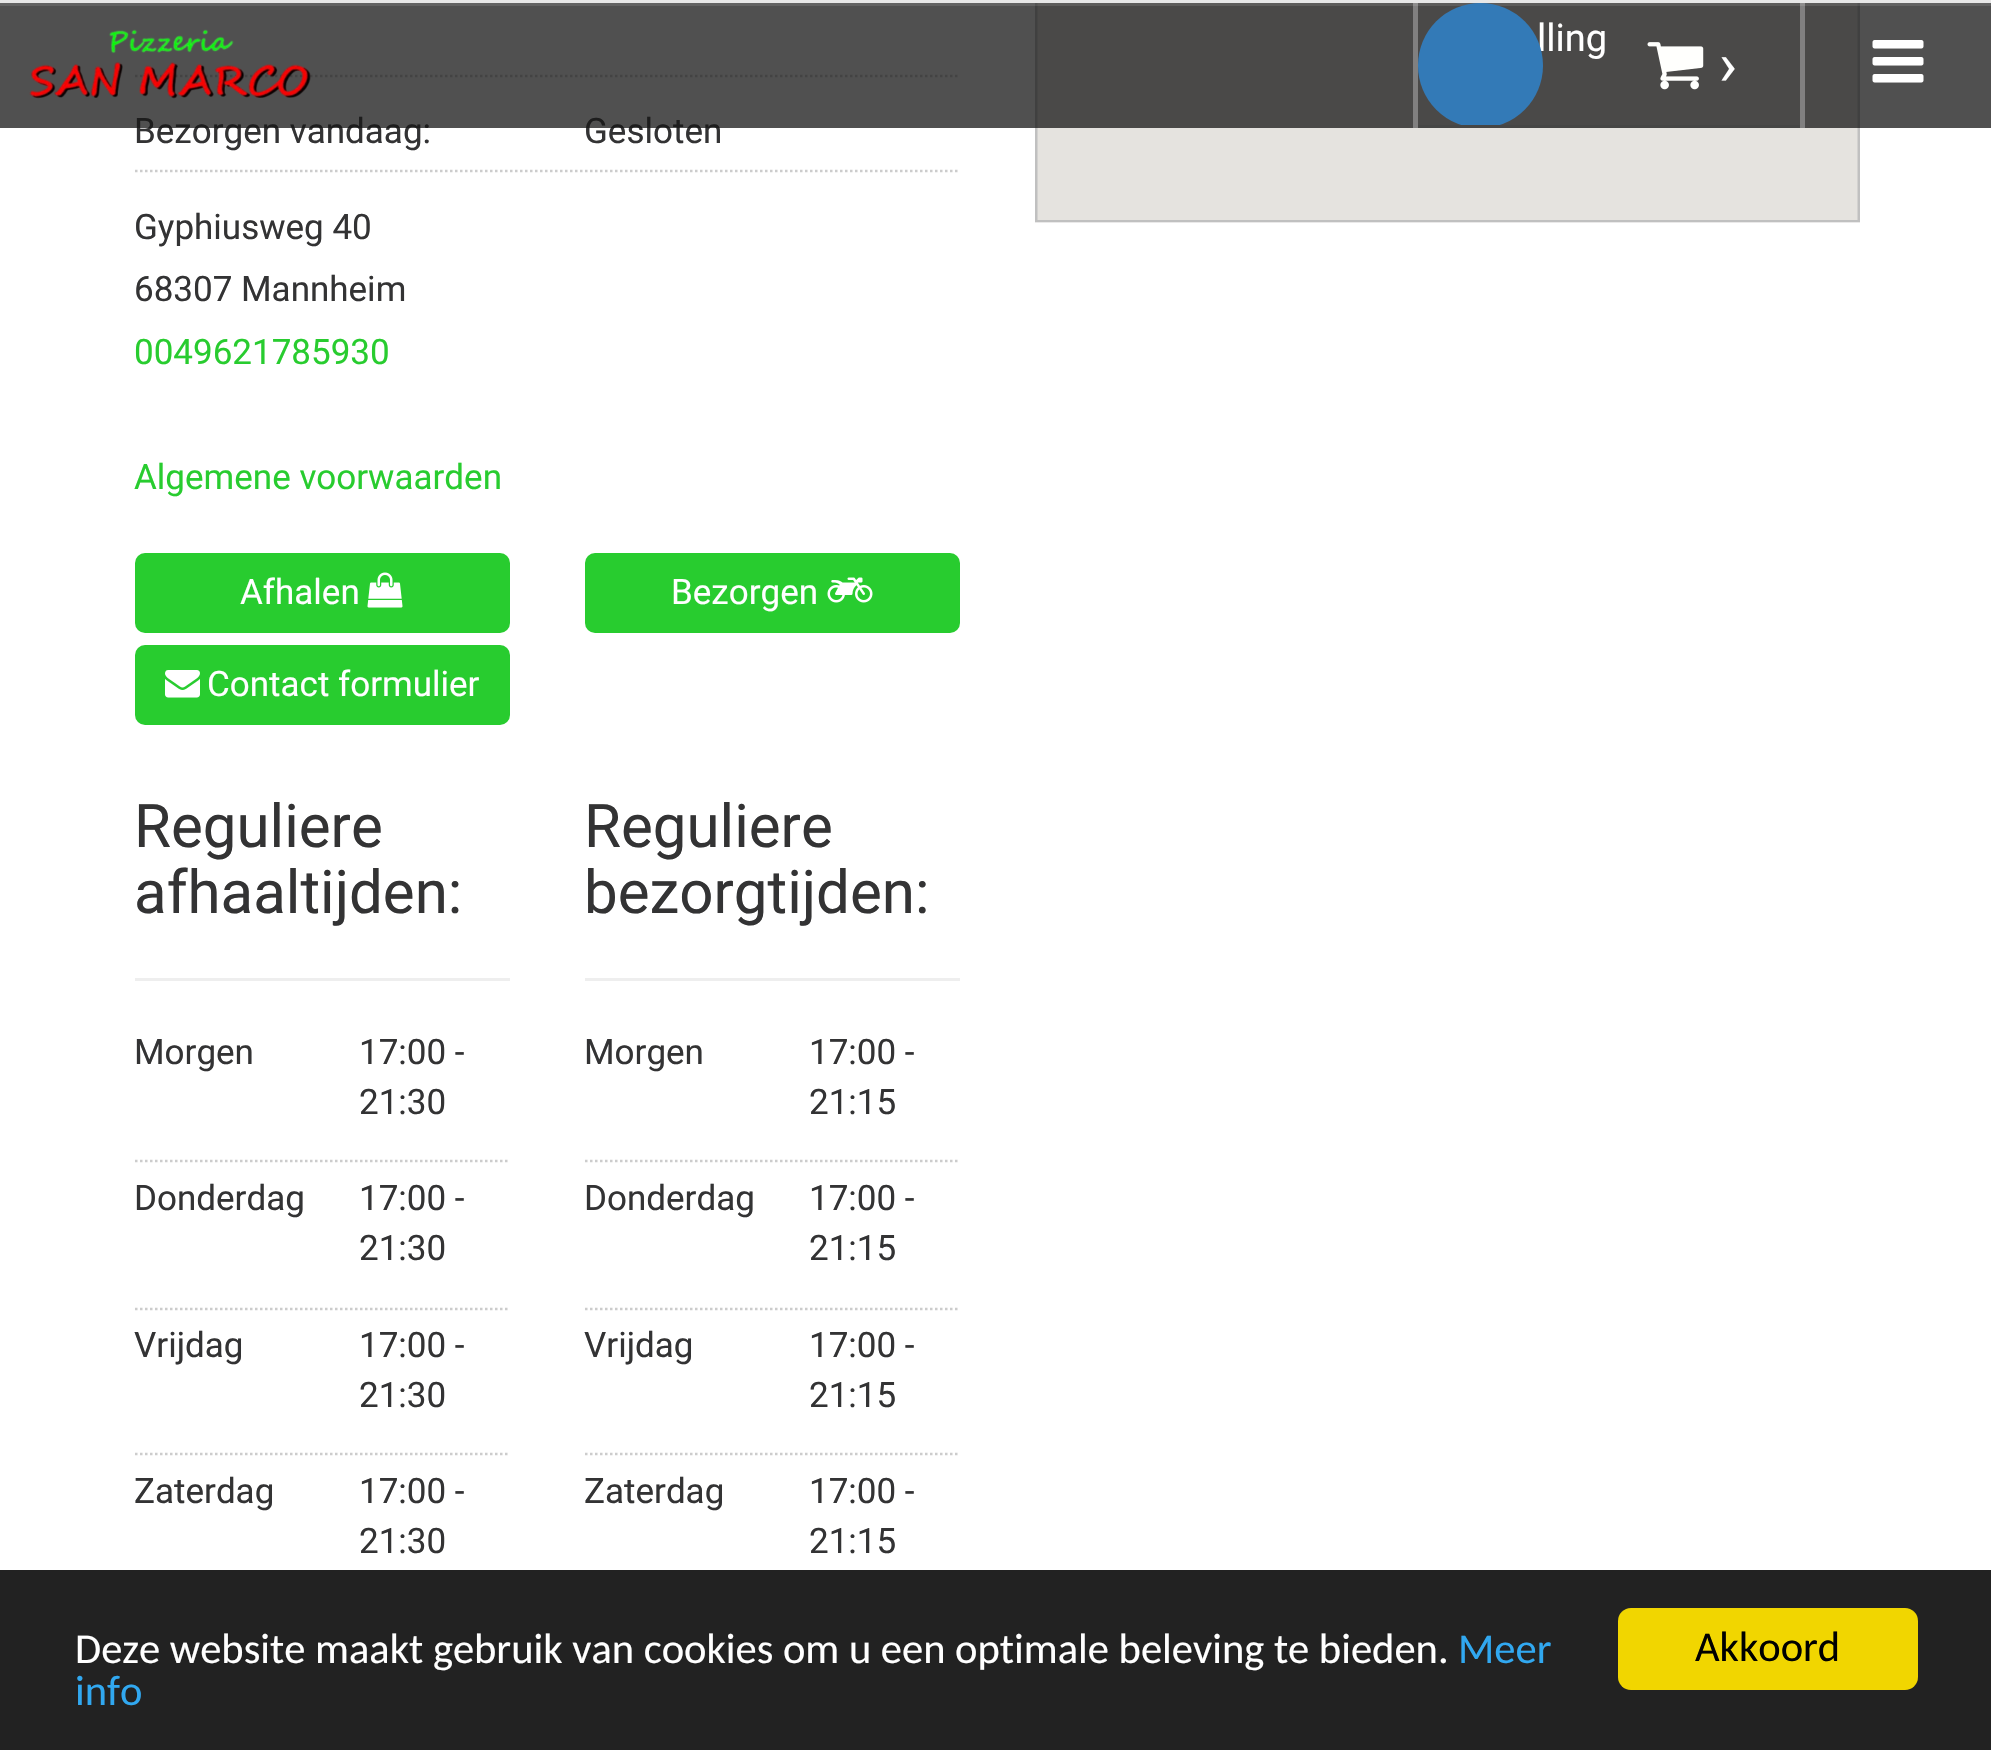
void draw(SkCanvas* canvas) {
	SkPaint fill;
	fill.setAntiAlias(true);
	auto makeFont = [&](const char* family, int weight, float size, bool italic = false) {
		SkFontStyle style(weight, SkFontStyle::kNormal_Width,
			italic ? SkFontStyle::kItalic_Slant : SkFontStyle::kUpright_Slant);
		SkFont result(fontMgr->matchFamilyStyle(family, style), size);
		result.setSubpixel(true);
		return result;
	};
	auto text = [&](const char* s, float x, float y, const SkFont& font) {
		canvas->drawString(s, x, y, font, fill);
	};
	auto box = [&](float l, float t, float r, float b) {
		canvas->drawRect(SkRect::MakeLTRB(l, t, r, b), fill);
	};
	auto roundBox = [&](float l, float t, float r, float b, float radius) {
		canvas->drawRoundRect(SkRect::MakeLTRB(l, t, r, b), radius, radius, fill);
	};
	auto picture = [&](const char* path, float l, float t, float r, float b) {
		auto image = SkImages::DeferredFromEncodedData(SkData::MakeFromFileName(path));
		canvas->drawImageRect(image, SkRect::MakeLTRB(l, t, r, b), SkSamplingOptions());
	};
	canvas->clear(0xFFFFFFFF);
	fill.setColor(0xFFE7E7E7);
	box(0, 0, 1991, 3);
	fill.setStyle(SkPaint::kStroke_Style);
	fill.setStrokeWidth(2.5f);
	fill.setColor(0xFFCCCCCC);
	fill.setPathEffect(SkDashPathEffect::Make({{2.5f, 2.5f}}, 0));
	canvas->drawPath(SkPathBuilder().moveTo(135, 76).lineTo(960, 76).detach(), fill);
	fill.setPathEffect(nullptr);
	fill.setPathEffect(SkDashPathEffect::Make({{2.5f, 2.5f}}, 0));
	canvas->drawPath(SkPathBuilder().moveTo(135, 171).lineTo(960, 171).detach(), fill);
	fill.setPathEffect(nullptr);
	fill.setStyle(SkPaint::kFill_Style);
	fill.setColor(0xFF28CC2F);
	roundBox(135, 553, 510, 633, 10);
	picture("image3.png", 367, 572, 403, 608);
	roundBox(585, 553, 960, 633, 10);
	picture("image4.png", 827, 577, 873, 603);
	roundBox(135, 645, 510, 725, 10);
	picture("image5.png", 165, 670, 200, 698);
	fill.setColor(0xFFEEEEEE);
	box(135, 978, 510, 981);
	fill.setStyle(SkPaint::kStroke_Style);
	fill.setColor(0xFFCCCCCC);
	fill.setPathEffect(SkDashPathEffect::Make({{2.5f, 2.5f}}, 0));
	canvas->drawPath(SkPathBuilder().moveTo(135, 1161).lineTo(510, 1161).detach(), fill);
	fill.setPathEffect(nullptr);
	fill.setPathEffect(SkDashPathEffect::Make({{2.5f, 2.5f}}, 0));
	canvas->drawPath(SkPathBuilder().moveTo(135, 1309).lineTo(510, 1309).detach(), fill);
	fill.setPathEffect(nullptr);
	fill.setPathEffect(SkDashPathEffect::Make({{2.5f, 2.5f}}, 0));
	canvas->drawPath(SkPathBuilder().moveTo(135, 1454).lineTo(510, 1454).detach(), fill);
	fill.setPathEffect(nullptr);
	fill.setStyle(SkPaint::kFill_Style);
	fill.setColor(0xFFEEEEEE);
	box(585, 978, 960, 981);
	fill.setStyle(SkPaint::kStroke_Style);
	fill.setColor(0xFFCCCCCC);
	fill.setPathEffect(SkDashPathEffect::Make({{2.5f, 2.5f}}, 0));
	canvas->drawPath(SkPathBuilder().moveTo(585, 1161).lineTo(960, 1161).detach(), fill);
	fill.setPathEffect(nullptr);
	fill.setPathEffect(SkDashPathEffect::Make({{2.5f, 2.5f}}, 0));
	canvas->drawPath(SkPathBuilder().moveTo(585, 1309).lineTo(960, 1309).detach(), fill);
	fill.setPathEffect(nullptr);
	fill.setPathEffect(SkDashPathEffect::Make({{2.5f, 2.5f}}, 0));
	canvas->drawPath(SkPathBuilder().moveTo(585, 1454).lineTo(960, 1454).detach(), fill);
	fill.setPathEffect(nullptr);
	picture("image6.png", 1035, 3, 1860, 223);
	fill.setStyle(SkPaint::kFill_Style);
	fill.setColor(0xFF222222);
	box(0, 1570, 1991, 1750);
	fill.setColor(0xFFF1D600);
	roundBox(1618, 1608, 1918, 1690, 13);
	auto font1 = makeFont("Roboto", 400, 35);
	fill.setColor(0xFF333334);
	text("Bezorgen vandaag:", 134, 143, font1);
	text("Gesloten", 584, 143, font1);
	fill.setColor(0xBF151515);
	box(0, 3, 1991, 128);
	picture("image1.png", 29, 29, 311, 99);
	auto font2 = makeFont("Roboto", 400, 38);
	fill.setColor(0xFFFFFFFF);
	text("lling", 1537, 51, font2);
	fill.setColor(0xFF464645);
	box(1418, 125, 1800, 128);
	fill.setColor(0x1AFFFFFF);
	box(0, 3, 1991, 6);
	canvas->save();
	canvas->clipRect(SkRect::MakeLTRB(1418, 3, 1800, 125));
	fill.setColor(0xFF337AB7);
	canvas->drawCircle(1480.5f, 65.5f, 62.5f, fill);
	canvas->restore();
	picture("image0.png", 1647, 42, 1704, 90);
	auto font3 = makeFont("Roboto", 400, 60);
	fill.setColor(0xFFFFFFFF);
	text("›", 1719, 85, font3);
	fill.setColor(0x4DFFFFFF);
	box(1413, 3, 1418, 128);
	picture("image2.png", 1872, 40, 1924, 83);
	box(1800, 3, 1805, 128);
	fill.setColor(0xFF333334);
	text("Gyphiusweg 40", 134, 239, font1);
	text("68307 Mannheim", 134, 301, font1);
	fill.setColor(0xFF28CC2F);
	text("0049621785930", 134, 364, font1);
	text("Algemene voorwaarden", 134, 489, font1);
	fill.setColor(0xFFFFFFFF);
	text("Afhalen", 240, 604, font1);
	text("Bezorgen", 671, 604, font1);
	text("Contact formulier", 207, 696, font1);
	fill.setColor(0xFF333334);
	text("Reguliere", 134, 847, font3);
	text("afhaaltijden:", 134, 913, font3);
	text("Morgen", 134, 1064, font1);
	text("17:00 -", 359, 1064, font1);
	text("21:30", 359, 1114, font1);
	text("Donderdag", 134, 1210, font1);
	text("17:00 -", 359, 1210, font1);
	text("21:30", 359, 1260, font1);
	text("Vrijdag", 134, 1357, font1);
	text("17:00 -", 359, 1357, font1);
	text("21:30", 359, 1407, font1);
	text("Zaterdag", 134, 1503, font1);
	text("17:00 -", 359, 1503, font1);
	text("21:30", 359, 1553, font1);
	text("Reguliere", 584, 847, font3);
	text("bezorgtijden:", 584, 913, font3);
	text("Morgen", 584, 1064, font1);
	text("17:00 -", 809, 1064, font1);
	text("21:15", 809, 1114, font1);
	text("Donderdag", 584, 1210, font1);
	text("17:00 -", 809, 1210, font1);
	text("21:15", 809, 1260, font1);
	text("Vrijdag", 584, 1357, font1);
	text("17:00 -", 809, 1357, font1);
	text("21:15", 809, 1407, font1);
	text("Zaterdag", 584, 1503, font1);
	text("17:00 -", 809, 1503, font1);
	text("21:15", 809, 1553, font1);
	auto font4 = makeFont("Carlito", 400, 42.5f);
	fill.setColor(0xFFFFFFFF);
	text("Deze website maakt gebruik van cookies om u een optimale beleving te bieden.", 75, 1663, font4);
	fill.setColor(0xFF31A8F0);
	text("Meer", 1458, 1663, font4);
	text("info", 75, 1705, font4);
	fill.setColor(0xFF000000);
	text("Akkoord", 1695, 1661, font4);
}
